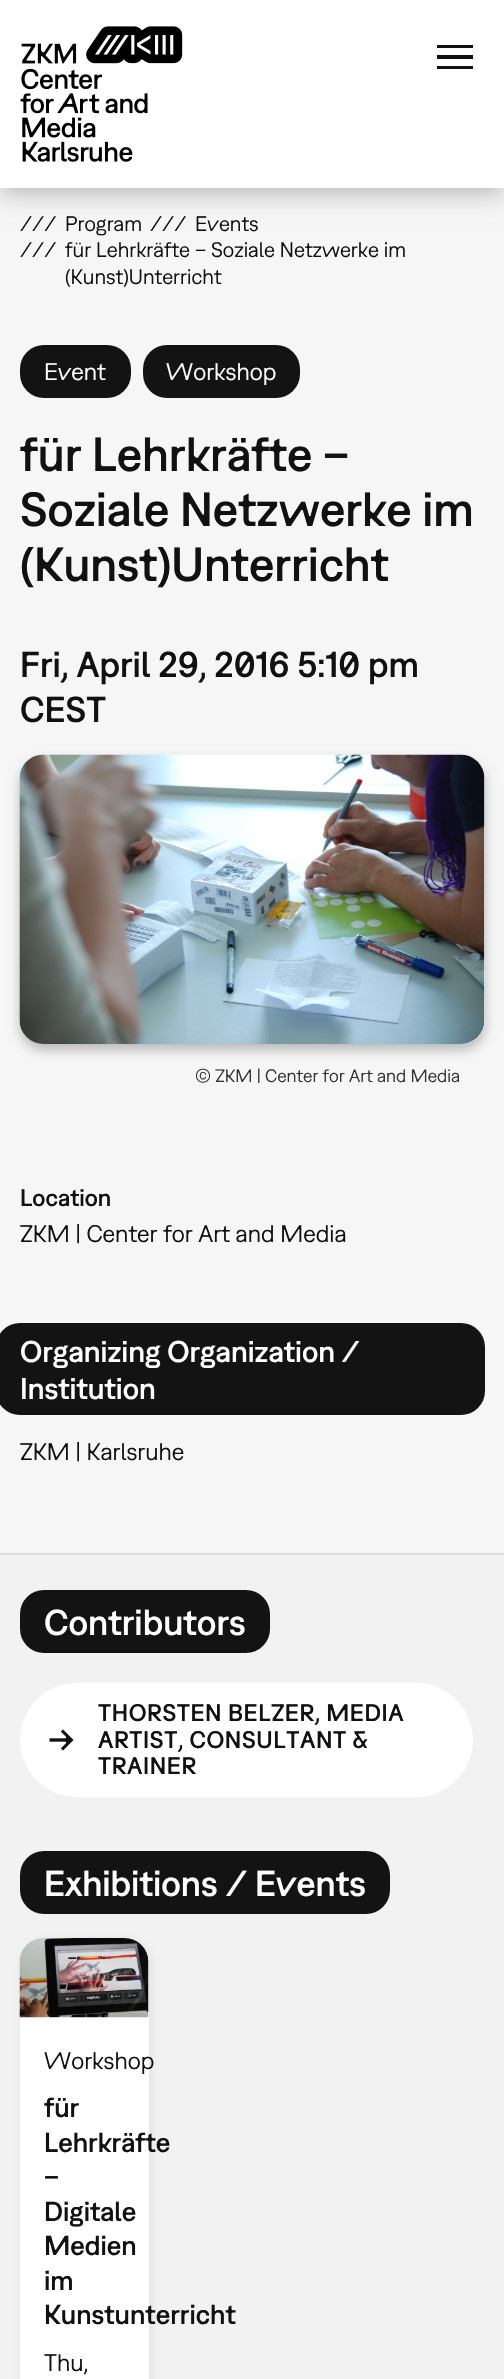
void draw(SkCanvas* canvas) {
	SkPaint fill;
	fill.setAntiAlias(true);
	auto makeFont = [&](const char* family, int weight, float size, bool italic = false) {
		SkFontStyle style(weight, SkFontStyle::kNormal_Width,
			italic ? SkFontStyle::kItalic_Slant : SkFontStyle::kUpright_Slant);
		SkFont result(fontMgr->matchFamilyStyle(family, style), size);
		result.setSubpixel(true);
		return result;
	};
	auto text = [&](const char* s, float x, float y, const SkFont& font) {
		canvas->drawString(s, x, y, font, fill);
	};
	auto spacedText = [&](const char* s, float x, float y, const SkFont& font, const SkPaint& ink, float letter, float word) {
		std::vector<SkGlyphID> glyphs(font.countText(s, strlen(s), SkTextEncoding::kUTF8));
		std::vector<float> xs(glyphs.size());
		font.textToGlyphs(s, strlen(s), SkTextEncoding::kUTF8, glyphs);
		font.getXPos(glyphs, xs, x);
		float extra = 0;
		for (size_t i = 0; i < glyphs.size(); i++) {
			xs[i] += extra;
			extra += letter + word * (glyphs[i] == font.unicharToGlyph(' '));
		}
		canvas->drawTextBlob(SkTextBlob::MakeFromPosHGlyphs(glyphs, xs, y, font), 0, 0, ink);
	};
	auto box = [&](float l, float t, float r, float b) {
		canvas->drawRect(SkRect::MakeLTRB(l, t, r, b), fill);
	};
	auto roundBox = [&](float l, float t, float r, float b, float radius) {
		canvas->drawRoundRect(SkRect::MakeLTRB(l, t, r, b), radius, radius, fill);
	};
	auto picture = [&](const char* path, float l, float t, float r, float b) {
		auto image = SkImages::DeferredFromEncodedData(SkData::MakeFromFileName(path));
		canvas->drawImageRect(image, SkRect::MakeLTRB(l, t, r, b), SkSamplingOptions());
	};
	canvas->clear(0xFFF6F6F6);
	fill.setColor(0x40000000);
	fill.setMaskFilter(SkMaskFilter::MakeBlur(kNormal_SkBlurStyle, 12));
	canvas->drawRect(SkRect::MakeLTRB(0, 6, 504, 194), fill);
	fill.setMaskFilter(nullptr);
	fill.setColor(0xFFFFFFFF);
	box(0, 0, 504, 188);
	picture("image0.png", 20, 26, 183, 162);
	fill.setColor(0xFF111111);
	box(437, 45, 473, 48);
	box(437, 55, 473, 59);
	box(437, 66, 473, 69);
	fill.setColor(0xFF131313);
	roundBox(20, 345, 131, 398, 24);
	roundBox(143, 345, 300, 398, 24);
	fill.setColor(0x40000000);
	fill.setMaskFilter(SkMaskFilter::MakeBlur(kNormal_SkBlurStyle, 6));
	canvas->drawRoundRect(SkRect::MakeLTRB(20, 761, 485, 1050), 24, 24, fill);
	fill.setMaskFilter(nullptr);
	fill.setColor(0xFFFFFFFF);
	roundBox(20, 755, 485, 1044, 24);
	picture("image1.png", 19, 754, 485, 1044);
	fill.setColor(0xFF131313);
	roundBox(-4, 1323, 485, 1415, 24);
	fill.setColor(0xFFF2F2F2);
	box(0, 1555, 504, 2379);
	fill.setColor(0xFFDEDEDE);
	box(0, 1553, 504, 1555);
	fill.setColor(0xFF131313);
	roundBox(20, 1590, 270, 1653, 24);
	fill.setColor(0xFFFFFFFF);
	roundBox(20, 1683, 473, 1797, 57);
	picture("image2.png", 49, 1729, 74, 1751);
	fill.setColor(0xFF131313);
	roundBox(20, 1851, 390, 1914, 24);
	fill.setColor(0x0D000000);
	fill.setMaskFilter(SkMaskFilter::MakeBlur(kNormal_SkBlurStyle, 3));
	canvas->drawRoundRect(SkRect::MakeLTRB(20, 1938, 153, 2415), 27, 27, fill);
	fill.setMaskFilter(nullptr);
	fill.setColor(0xFFFFFFFF);
	roundBox(20, 1938, 149, 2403, 24);
	canvas->drawPath(SkPathBuilder().moveTo(44, 1938).lineTo(125, 1938).cubicTo(138.5f, 1938, 149, 1948.5f, 149, 1962).lineTo(149, 2018).lineTo(20, 2018).lineTo(20, 1962).cubicTo(20, 1948.5f, 30.5f, 1938, 44, 1938).close().detach(), fill);
	picture("image3.png", 19, 1938, 149, 2018);
	auto font1 = makeFont("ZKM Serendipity", 400, 21);
	fill.setColor(0xFF111111);
	text("///", 20, 231, font1);
	text("Program", 65, 231, font1);
	text("///", 150, 231, font1);
	text("Events", 195, 231, font1);
	text("///", 20, 257, font1);
	text("für Lehrkräfte – Soziale Netzwerke im", 65, 257, font1);
	text("(Kunst)Unterricht", 65, 284, font1);
	auto font2 = makeFont("ZKM Serendipity", 400, 24);
	fill.setColor(0xFFFFFFFF);
	text("Event", 44, 380, font2);
	text("Workshop", 166, 380, font2);
	auto font3 = makeFont("ZKM Serendipity", 500, 48);
	fill.setColor(0xFF111111);
	text("für Lehrkräfte –", 20, 471, font3);
	text("Soziale Netzwerke im", 20, 526, font3);
	text("(Kunst)Unterricht", 20, 581, font3);
	auto font4 = makeFont("ZKM Serendipity", 500, 36);
	text("Fri, April 29, 2016 5:10 pm", 20, 677, font4);
	text("CEST", 20, 722, font4);
	auto font5 = makeFont("ZKM Serendipity", 400, 18);
	fill.setColor(0xFF333333);
	text("© ZKM | Center for Art and Media", 195, 1082, font5);
	auto font6 = makeFont("ZKM Serendipity", 500, 24);
	fill.setColor(0xFF111111);
	text("Location", 20, 1206, font6);
	text("ZKM | Center for Art and Media", 20, 1242, font2);
	auto font7 = makeFont("ZKM Serendipity", 500, 30);
	fill.setColor(0xFFFFFFFF);
	text("Organizing Organization /", 20, 1362, font7);
	text("Institution", 20, 1399, font7);
	fill.setColor(0xFF111111);
	text("ZKM | Karlsruhe", 20, 1460, font2);
	fill.setColor(0xFFFFFFFF);
	text("Contributors", 44, 1635, font4);
	fill.setColor(0xFF111111);
	spacedText("THORSTEN BELZER, MEDIA", 98, 1721, font6, fill, 0.6f, 0);
	spacedText("ARTIST, CONSULTANT &", 98, 1748, font6, fill, 0.6f, 0);
	spacedText("TRAINER", 98, 1774, font6, fill, 0.6f, 0);
	fill.setColor(0xFFFFFFFF);
	text("Exhibitions / Events", 44, 1896, font4);
	fill.setColor(0xFF111111);
	text("Workshop", 44, 2069, font2);
	auto font8 = makeFont("ZKM Serendipity", 500, 27.5f);
	text("für", 44, 2117, font8);
	text("Lehrkräfte", 44, 2152, font8);
	text("–", 44, 2186, font8);
	text("Digitale", 44, 2221, font8);
	text("Medien", 44, 2255, font8);
	text("im", 44, 2290, font8);
	text("Kunstunterricht", 44, 2324, font8);
	text("Thu,", 44, 2371, font2);
}
